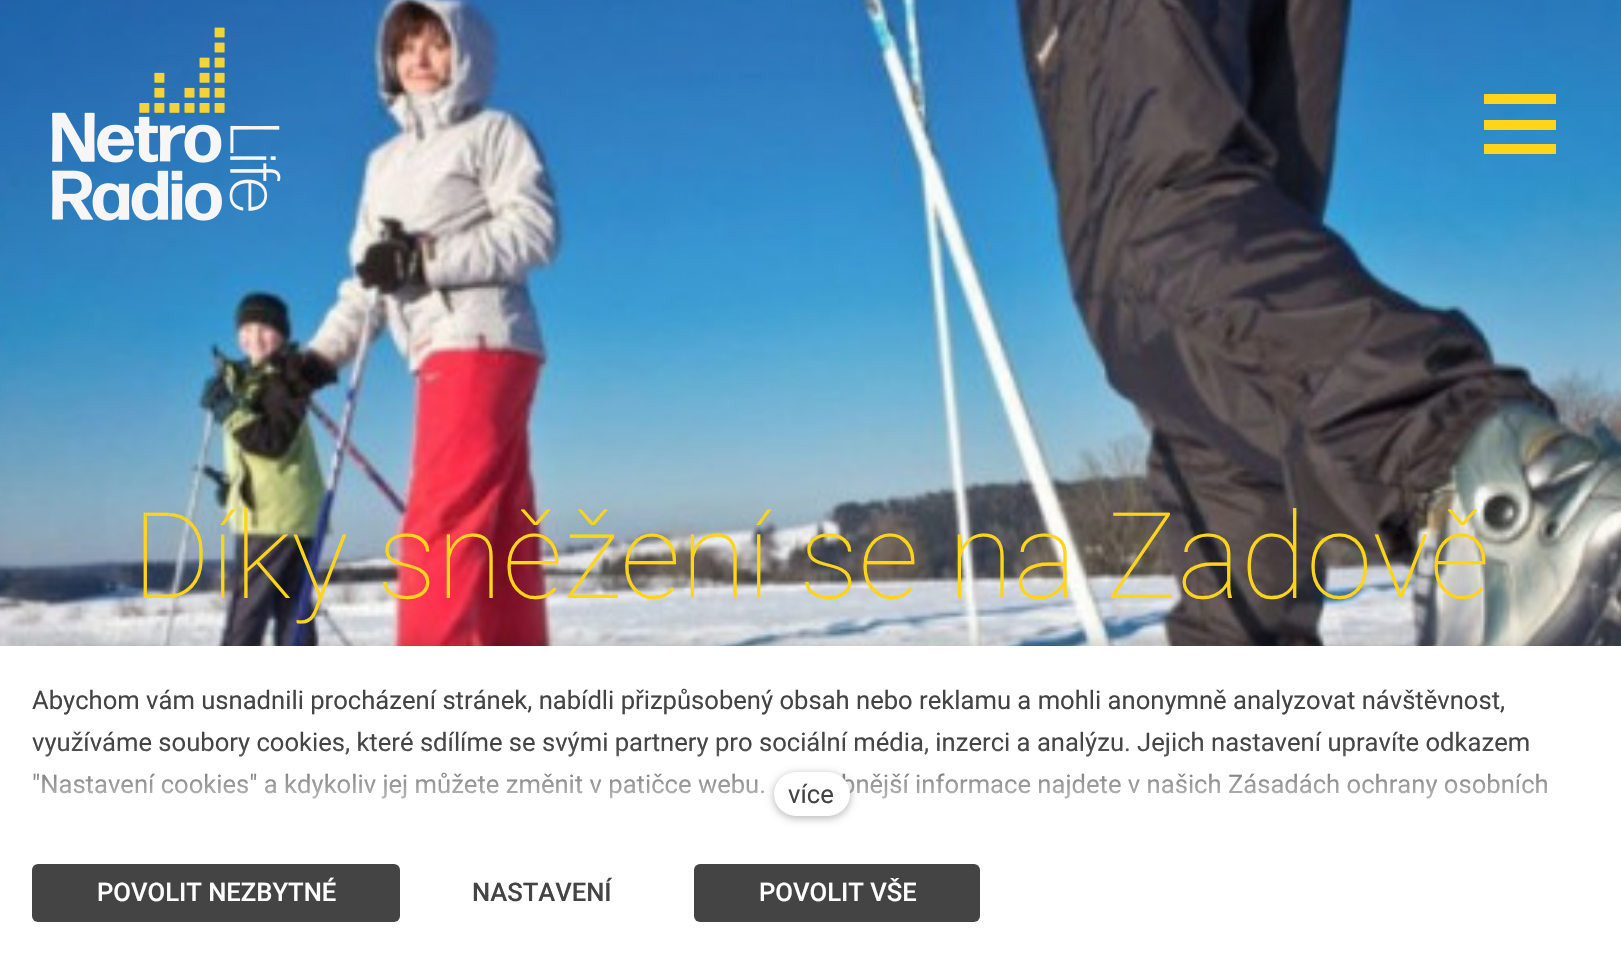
void draw(SkCanvas* canvas) {
	SkPaint fill;
	fill.setAntiAlias(true);
	auto makeFont = [&](const char* family, int weight, float size, bool italic = false) {
		SkFontStyle style(weight, SkFontStyle::kNormal_Width,
			italic ? SkFontStyle::kItalic_Slant : SkFontStyle::kUpright_Slant);
		SkFont result(fontMgr->matchFamilyStyle(family, style), size);
		result.setSubpixel(true);
		return result;
	};
	auto text = [&](const char* s, float x, float y, const SkFont& font) {
		canvas->drawString(s, x, y, font, fill);
	};
	auto box = [&](float l, float t, float r, float b) {
		canvas->drawRect(SkRect::MakeLTRB(l, t, r, b), fill);
	};
	auto roundBox = [&](float l, float t, float r, float b, float radius) {
		canvas->drawRoundRect(SkRect::MakeLTRB(l, t, r, b), radius, radius, fill);
	};
	auto picture = [&](const char* path, float l, float t, float r, float b) {
		auto image = SkImages::DeferredFromEncodedData(SkData::MakeFromFileName(path));
		canvas->drawImageRect(image, SkRect::MakeLTRB(l, t, r, b), SkSamplingOptions());
	};
	canvas->clear(0xFFFFFFFF);
	picture("image1.png", 0, 0, 1621, 646);
	picture("image0.png", 52, 27, 281, 221);
	fill.setColor(0xFFFFD51B);
	box(1484, 94, 1556, 104);
	box(1484, 120, 1556, 130);
	box(1484, 144, 1556, 154);
	fill.setColor(0x40000000);
	fill.setMaskFilter(SkMaskFilter::MakeBlur(kNormal_SkBlurStyle, 12));
	canvas->drawRect(SkRect::MakeLTRB(0, 646, 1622, 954), fill);
	fill.setMaskFilter(nullptr);
	fill.setColor(0xFFFFFFFF);
	box(0, 646, 1621, 953);
	fill.setColor(0xFF444444);
	roundBox(32, 864, 400, 922, 6);
	roundBox(694, 864, 980, 922, 6);
	auto font1 = makeFont("Roboto", 100, 120);
	fill.setColor(0xFFFFD51B);
	text("Díky sněžení se na Zadově", 132, 598, font1);
	auto font2 = makeFont("Roboto", 400, 25.6f);
	fill.setColor(0xFF444444);
	text("Abychom vám usnadnili procházení stránek, nabídli přizpůsobený obsah nebo reklamu a mohli anonymně analyzovat návštěvnost,", 32, 709, font2);
	text("využíváme soubory cookies, které sdílíme se svými partnery pro sociální média, inzerci a analýzu. Jejich nastavení upravíte odkazem", 32, 751, font2);
	text("\"Nastavení cookies\" a kdykoliv jej můžete změnit v patičce webu.", 32, 793, font2);
	text("bnější informace najdete v našich Zásadách ochrany osobních", 841, 793, font2);
	{
		const SkColor colors[] = {0xFFFFFFFF, 0x00FFFFFF};
		const float stops[] = {0, 1};
		const SkPoint ends[] = {{811, 832}, {811, 744}};
		fill.setShader(SkGradientShader::MakeLinear(ends, colors, stops, 2, SkTileMode::kClamp));
		fill.setAlpha(255);
	}
	box(33, 746, 1547, 799);
	fill.setShader(nullptr);
	fill.setColor(0x4D000000);
	fill.setMaskFilter(SkMaskFilter::MakeBlur(kNormal_SkBlurStyle, 4));
	canvas->drawRoundRect(SkRect::MakeLTRB(774, 774, 850, 818), 22, 22, fill);
	fill.setMaskFilter(nullptr);
	fill.setColor(0xFFFFFFFF);
	roundBox(774, 772, 850, 816, 22);
	fill.setColor(0xFF444444);
	text("více", 788, 803, font2);
	auto font3 = makeFont("Roboto", 500, 25.6f);
	fill.setColor(0xFFFFFFFF);
	text("POVOLIT NEZBYTNÉ", 97, 901, font3);
	fill.setColor(0xFF444444);
	text("NASTAVENÍ", 472, 901, font3);
	fill.setColor(0xFFFFFFFF);
	text("POVOLIT VŠE", 759, 901, font3);
}
